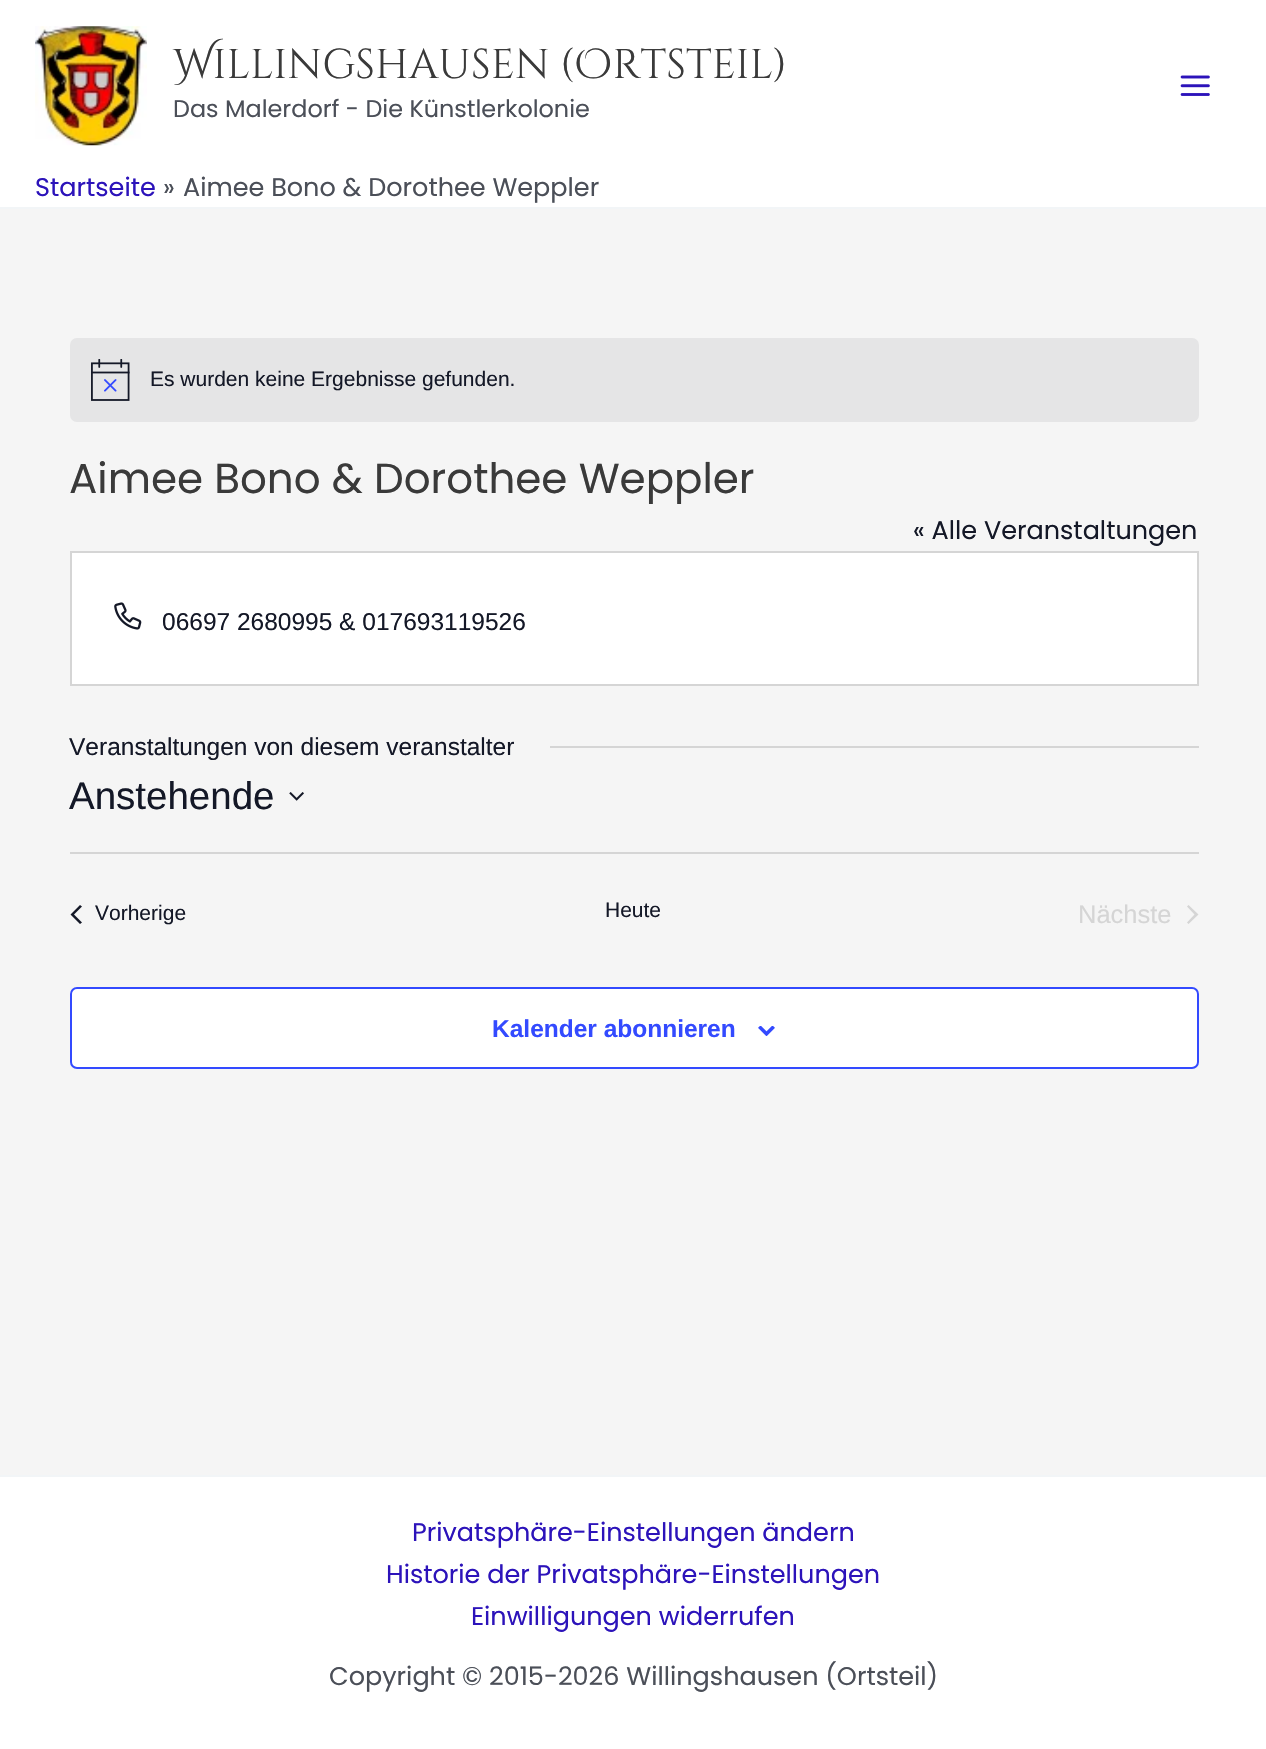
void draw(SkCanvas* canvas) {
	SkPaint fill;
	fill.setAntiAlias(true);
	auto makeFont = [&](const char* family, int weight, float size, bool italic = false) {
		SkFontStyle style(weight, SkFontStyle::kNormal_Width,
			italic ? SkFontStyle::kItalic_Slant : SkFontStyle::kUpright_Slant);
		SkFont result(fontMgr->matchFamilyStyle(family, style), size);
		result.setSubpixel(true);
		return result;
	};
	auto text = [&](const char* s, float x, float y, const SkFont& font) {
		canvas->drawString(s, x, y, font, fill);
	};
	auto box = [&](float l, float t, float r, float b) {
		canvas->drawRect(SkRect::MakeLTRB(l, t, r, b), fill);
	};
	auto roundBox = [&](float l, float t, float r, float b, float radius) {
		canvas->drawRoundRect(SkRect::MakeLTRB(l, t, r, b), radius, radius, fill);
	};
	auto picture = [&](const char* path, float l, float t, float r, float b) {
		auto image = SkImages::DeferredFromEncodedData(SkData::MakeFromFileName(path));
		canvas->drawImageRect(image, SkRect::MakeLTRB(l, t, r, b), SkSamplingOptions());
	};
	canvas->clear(0xFFF5F5F5);
	fill.setColor(0xFFFFFFFF);
	box(0, 0, 1266, 207);
	fill.setColor(0xFFF2F5F7);
	box(0, 207, 1266, 209);
	picture("image0.png", 35, 26, 147, 146);
	picture("image1.png", 1180, 75, 1210, 96);
	fill.setColor(0xFFE5E5E6);
	roundBox(70, 338, 1199, 422, 7);
	picture("image2.png", 91, 359, 130, 401);
	fill.setColor(0xFFFFFFFF);
	canvas->drawRect(SkRect::MakeLTRB(71, 552, 1198, 685), fill);
	fill.setStyle(SkPaint::kStroke_Style);
	fill.setStrokeWidth(2);
	fill.setColor(0xFFD5D5D5);
	canvas->drawRect(SkRect::MakeLTRB(71, 552, 1198, 685), fill);
	picture("image3.png", 114, 602, 142, 630);
	fill.setStyle(SkPaint::kFill_Style);
	box(550, 746, 1199, 748);
	picture("image4.png", 289, 792, 304, 801);
	box(70, 852, 1199, 854);
	fill.setColor(0xFF141827);
	canvas->drawPath(SkPathBuilder().moveTo(82, 922.5f).lineTo(80, 924).lineTo(70.5f, 914.5f).lineTo(80, 905).lineTo(82, 906.5f).lineTo(74, 914.5f).close().detach(), fill);
	fill.setColor(0xFFD5D5D5);
	canvas->drawPath(SkPathBuilder().moveTo(1187, 906.5f).lineTo(1188.5f, 905).lineTo(1198.5f, 914.5f).lineTo(1188.5f, 924).lineTo(1187, 922.5f).lineTo(1194.5f, 914.5f).close().detach(), fill);
	fill.setColor(0xFFFFFFFF);
	canvas->drawRoundRect(SkRect::MakeLTRB(71, 988, 1198, 1068), 6, 6, fill);
	fill.setStyle(SkPaint::kStroke_Style);
	fill.setColor(0xFF334AFF);
	canvas->drawRoundRect(SkRect::MakeLTRB(71, 988, 1198, 1068), 6, 6, fill);
	picture("image5.png", 758, 1026, 775, 1036);
	fill.setStyle(SkPaint::kFill_Style);
	fill.setColor(0xFFFFFFFF);
	box(0, 1477, 1266, 1749);
	fill.setColor(0xFFF2F5F7);
	box(0, 1475, 1266, 1477);
	auto font1 = makeFont("Cinzel Decorative", 400, 41.5f);
	fill.setColor(0xFF3A3A3A);
	text("Willingshausen (Ortsteil)", 173, 78, font1);
	auto font2 = makeFont("Poppins", 400, 23.9f);
	fill.setColor(0xFF4B4F58);
	text("Das Malerdorf - Die Künstlerkolonie", 173, 117, font2);
	auto font3 = makeFont("Poppins", 400, 25.5f);
	fill.setColor(0xFF2C13BA);
	text("Startseite", 35, 196, font3);
	fill.setColor(0xFF4B4F58);
	text("»", 163, 196, font3);
	text("Aimee Bono & Dorothee Weppler", 183, 196, font3);
	auto font4 = makeFont("Liberation Sans", 400, 21);
	fill.setColor(0xFF141827);
	text("Es wurden keine Ergebnisse gefunden.", 150, 386, font4);
	auto font5 = makeFont("Poppins", 400, 42);
	fill.setColor(0xFF3A3A3A);
	text("Aimee Bono & Dorothee Weppler", 69, 493, font5);
	fill.setColor(0xFF141827);
	text("« Alle Veranstaltungen", 913, 539, font3);
	auto font6 = makeFont("Liberation Sans", 400, 24.5f);
	text("06697 2680995 & 017693119526", 162, 630, font6);
	text("Veranstaltungen von diesem veranstalter", 69, 755, font6);
	auto font7 = makeFont("Liberation Sans", 400, 38.5f);
	text("Anstehende", 69, 809, font7);
	text("Vorherige", 95, 920, font4);
	text("Heute", 605, 917, font4);
	auto font8 = makeFont("Liberation Sans", 400, 25.5f);
	fill.setColor(0xFFD5D5D5);
	text("Nächste", 1078, 923, font8);
	auto font9 = makeFont("Liberation Sans", 700, 24.5f);
	fill.setColor(0xFF334AFF);
	text("Kalender abonnieren", 492, 1037, font9);
	fill.setColor(0xFF2C13BA);
	text("Privatsphäre-Einstellungen ändern", 412, 1541, font3);
	text("Historie der Privatsphäre-Einstellungen", 386, 1583, font3);
	text("Einwilligungen widerrufen", 471, 1625, font3);
	fill.setColor(0xFF4B4F58);
	text("Copyright © 2015-2026 Willingshausen (Ortsteil)", 329, 1685, font3);
}
